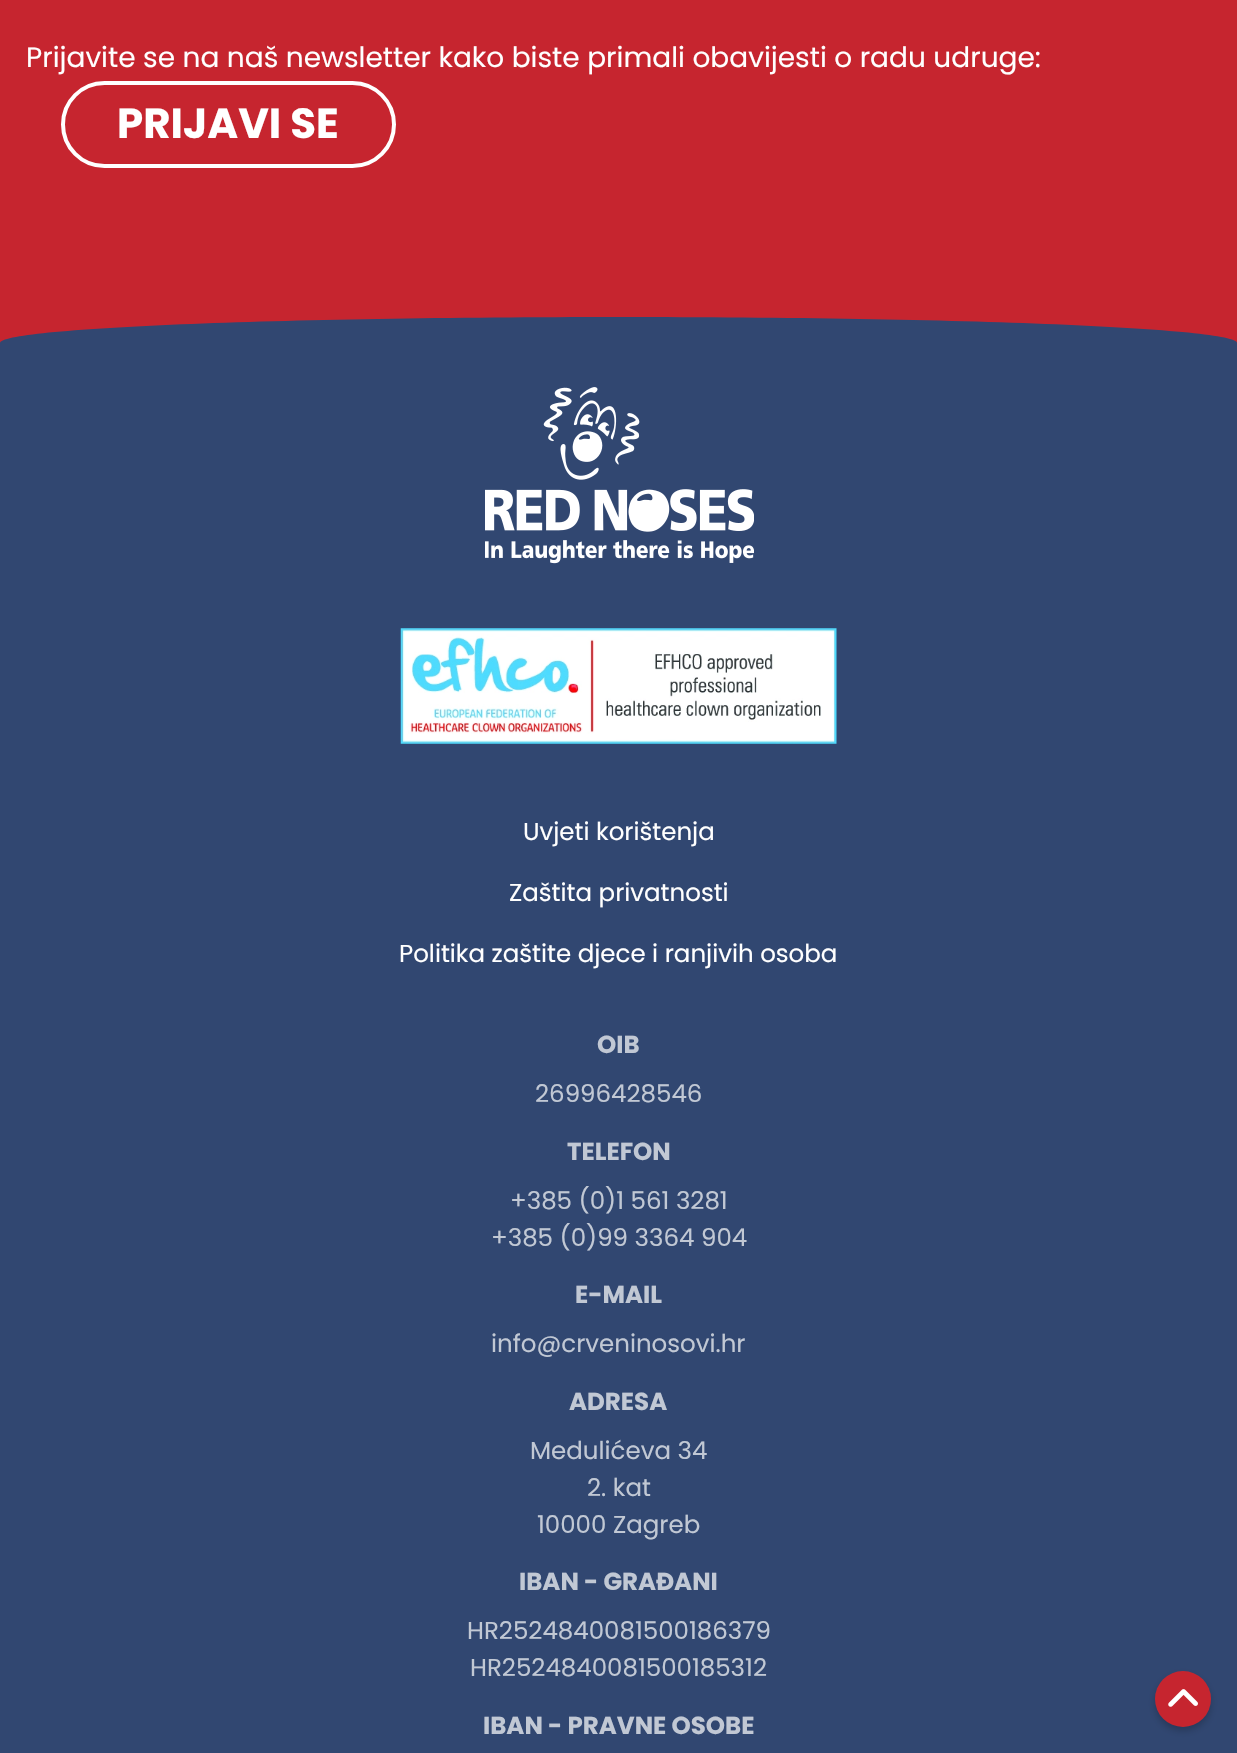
void draw(SkCanvas* canvas) {
	SkPaint fill;
	fill.setAntiAlias(true);
	auto makeFont = [&](const char* family, int weight, float size, bool italic = false) {
		SkFontStyle style(weight, SkFontStyle::kNormal_Width,
			italic ? SkFontStyle::kItalic_Slant : SkFontStyle::kUpright_Slant);
		SkFont result(fontMgr->matchFamilyStyle(family, style), size);
		result.setSubpixel(true);
		return result;
	};
	auto text = [&](const char* s, float x, float y, const SkFont& font) {
		canvas->drawString(s, x, y, font, fill);
	};
	auto picture = [&](const char* path, float l, float t, float r, float b) {
		auto image = SkImages::DeferredFromEncodedData(SkData::MakeFromFileName(path));
		canvas->drawImageRect(image, SkRect::MakeLTRB(l, t, r, b), SkSamplingOptions());
	};
	canvas->clear(0xFFFFFFFF);
	fill.setColor(0xFFC6252F);
	canvas->drawPath(SkPathBuilder().moveTo(619, -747).cubicTo(960, -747, 1237, -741, 1237, -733).lineTo(1237, 352).lineTo(0, 352).lineTo(0, -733).cubicTo(0, -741, 277, -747, 619, -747).close().detach(), fill);
	fill.setStyle(SkPaint::kStroke_Style);
	fill.setStrokeWidth(4);
	fill.setColor(0xFFFFFFFF);
	canvas->drawRoundRect(SkRect::MakeLTRB(63, 83, 394, 166), 41.5f, 41.5f, fill);
	fill.setStyle(SkPaint::kFill_Style);
	fill.setColor(0xFF314771);
	canvas->drawPath(SkPathBuilder().moveTo(619, 317).cubicTo(960, 317, 1237, 328, 1237, 343).lineTo(1237, 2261).lineTo(0, 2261).lineTo(0, 343).cubicTo(0, 328, 277, 317, 619, 317).close().detach(), fill);
	picture("image0.png", 485, 387, 754, 564);
	picture("image1.png", 400, 628, 837, 744);
	fill.setColor(0x33000000);
	fill.setMaskFilter(SkMaskFilter::MakeBlur(kNormal_SkBlurStyle, 3.5f));
	canvas->drawRoundRect(SkRect::MakeLTRB(1155, 1675, 1211, 1731), 28, 28, fill);
	fill.setMaskFilter(nullptr);
	fill.setColor(0xFFC6252F);
	canvas->drawCircle(1183, 1699, 28, fill);
	picture("image2.png", 1168, 1689, 1198, 1707);
	auto font1 = makeFont("Poppins", 400, 28);
	fill.setColor(0xFFFFFFFF);
	text("Prijavite se na naš newsletter kako biste primali obavijesti o radu udruge:", 26, 67, font1);
	auto font2 = makeFont("Poppins", 700, 42);
	text("PRIJAVI SE", 117, 138, font2);
	auto font3 = makeFont("Poppins", 400, 24.5f);
	text("Uvjeti korištenja", 523, 840, font3);
	text("Zaštita privatnosti", 509, 901, font3);
	text("Politika zaštite djece i ranjivih osoba", 399, 962, font3);
	auto font4 = makeFont("Poppins", 700, 24.5f);
	fill.setColor(0xFFC1C8D4);
	text("OIB", 597, 1053, font4);
	text("26996428546", 535, 1102, font3);
	text("TELEFON", 567, 1160, font4);
	text("+385 (0)1 561 3281", 510, 1209, font3);
	text("+385 (0)99 3364 904", 491, 1246, font3);
	text("E-MAIL", 575, 1303, font4);
	text("info@crveninosovi.hr", 491, 1352, font3);
	text("ADRESA", 569, 1410, font4);
	text("Medulićeva 34", 530, 1459, font3);
	text("2. kat", 587, 1496, font3);
	text("10000 Zagreb", 537, 1533, font3);
	text("IBAN - GRAĐANI", 519, 1590, font4);
	text("HR2524840081500186379", 467, 1639, font3);
	text("HR2524840081500185312", 470, 1676, font3);
	text("IBAN - PRAVNE OSOBE", 483, 1734, font4);
}
